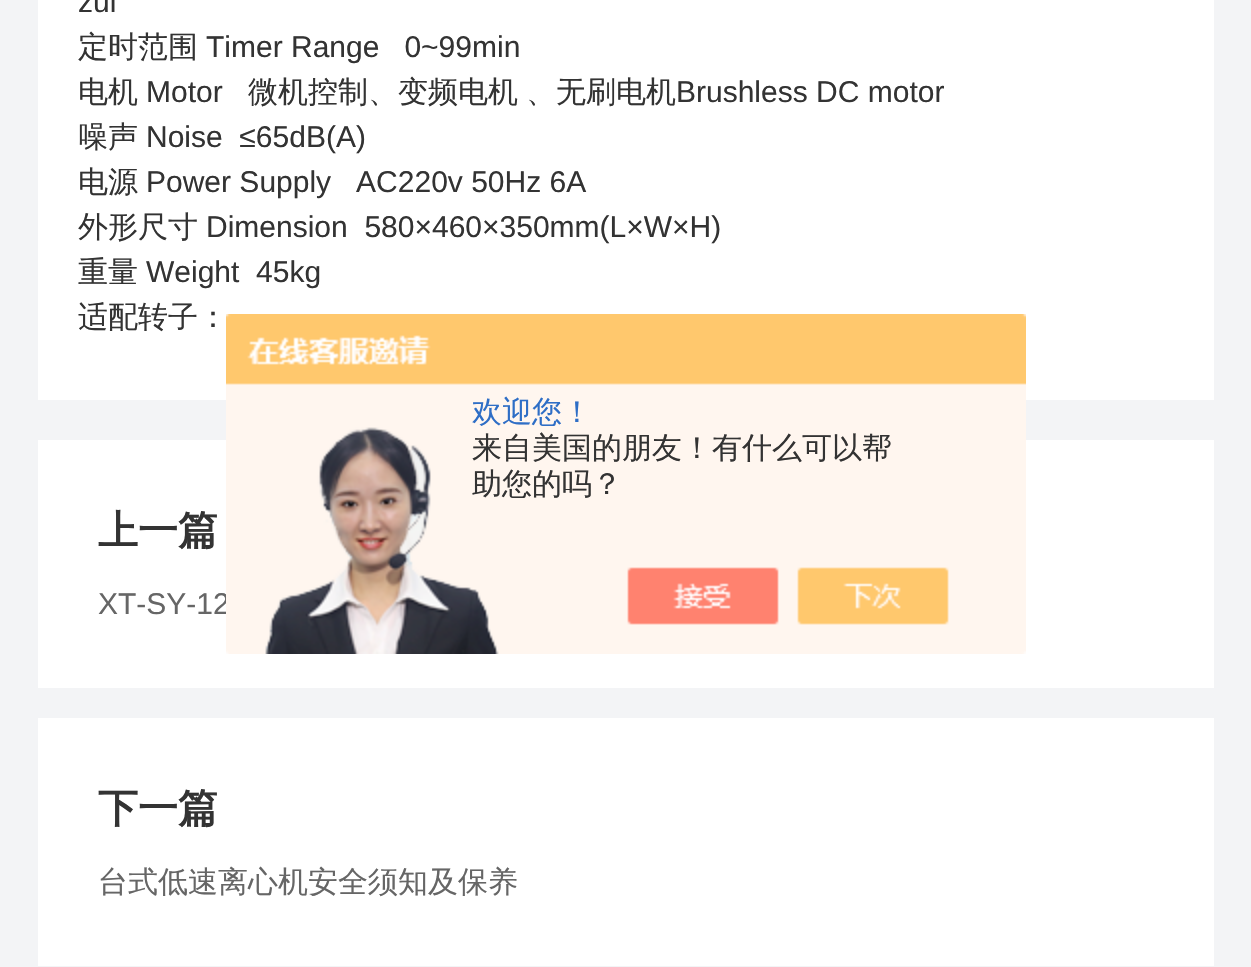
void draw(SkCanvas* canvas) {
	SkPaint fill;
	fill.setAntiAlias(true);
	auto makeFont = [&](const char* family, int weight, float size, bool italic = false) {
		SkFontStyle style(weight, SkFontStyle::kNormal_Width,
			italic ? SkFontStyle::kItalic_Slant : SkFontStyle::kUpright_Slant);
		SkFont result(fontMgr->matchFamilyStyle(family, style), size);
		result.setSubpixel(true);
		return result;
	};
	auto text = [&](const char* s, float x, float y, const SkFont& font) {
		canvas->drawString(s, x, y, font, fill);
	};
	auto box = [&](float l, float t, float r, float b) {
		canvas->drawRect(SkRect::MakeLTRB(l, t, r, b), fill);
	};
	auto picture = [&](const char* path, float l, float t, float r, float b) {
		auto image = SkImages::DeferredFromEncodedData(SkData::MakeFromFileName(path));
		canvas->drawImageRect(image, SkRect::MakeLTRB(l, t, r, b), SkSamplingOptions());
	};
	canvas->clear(0xFFF3F4F6);
	fill.setColor(0xFFFFFFFF);
	box(38, 0, 1214, 400);
	box(38, 440, 1214, 688);
	box(38, 718, 1214, 966);
	auto font1 = makeFont("Liberation Sans", 400, 30);
	fill.setColor(0xFF333333);
	text("zui", 78, 12, font1);
	auto font2 = makeFont("WenQuanYi Zen Hei", 500, 30);
	text("定时范围", 78, 57, font2);
	text("Timer Range   0~99min", 206, 57, font1);
	text("电机", 78, 102, font2);
	text("Motor", 146, 102, font1);
	text("微机控制、变频电机", 248, 102, font2);
	text("、无刷电机", 526, 102, font2);
	text("Brushless DC motor", 676, 102, font1);
	text("噪声", 78, 147, font2);
	text("Noise  ≤65dB(A)", 146, 147, font1);
	text("电源", 78, 192, font2);
	text("Power Supply   AC220v 50Hz 6A", 146, 192, font1);
	text("外形尺寸", 78, 237, font2);
	text("Dimension  580×460×350mm(L×W×H)", 206, 237, font1);
	text("重量", 78, 282, font2);
	text("Weight  45kg", 146, 282, font1);
	text("适配转子：", 78, 327, font2);
	auto font3 = makeFont("WenQuanYi Zen Hei", 700, 40);
	text("上一篇", 98, 544, font3);
	fill.setColor(0xFF666666);
	text("XT-SY-12", 98, 614, font1);
	fill.setColor(0xFF333333);
	text("下一篇", 98, 822, font3);
	fill.setColor(0xFF666666);
	text("台式低速离心机安全须知及保养", 98, 892, font2);
	picture("image0.png", 226, 314, 1026, 654);
	fill.setColor(0xFF2E6EC6);
	text("欢迎您！", 472, 422, font2);
	fill.setColor(0xFF333333);
	text("来自美国的朋友！有什么可以帮", 472, 458, font2);
	text("助您的吗？", 472, 494, font2);
}
